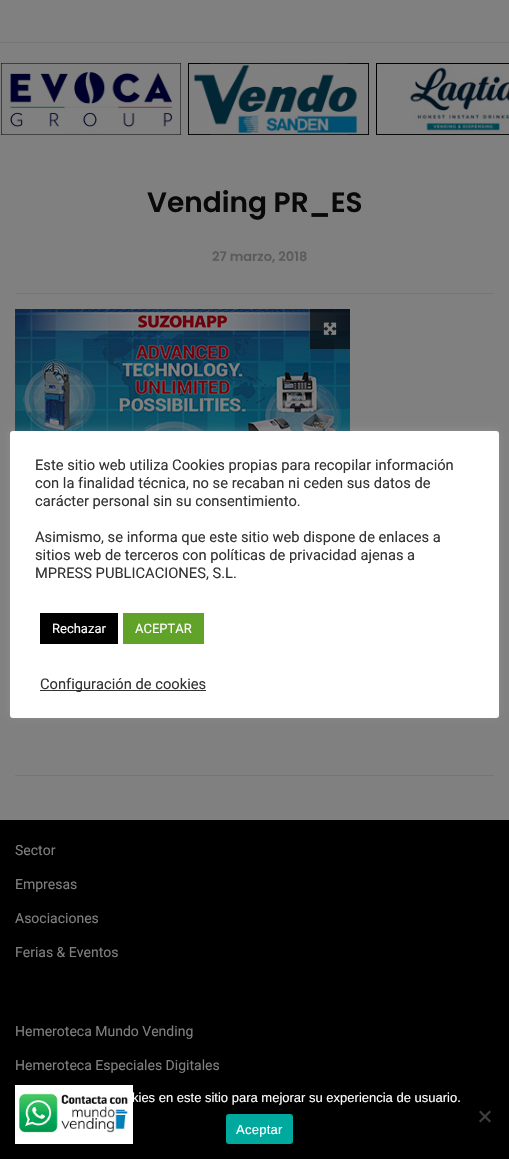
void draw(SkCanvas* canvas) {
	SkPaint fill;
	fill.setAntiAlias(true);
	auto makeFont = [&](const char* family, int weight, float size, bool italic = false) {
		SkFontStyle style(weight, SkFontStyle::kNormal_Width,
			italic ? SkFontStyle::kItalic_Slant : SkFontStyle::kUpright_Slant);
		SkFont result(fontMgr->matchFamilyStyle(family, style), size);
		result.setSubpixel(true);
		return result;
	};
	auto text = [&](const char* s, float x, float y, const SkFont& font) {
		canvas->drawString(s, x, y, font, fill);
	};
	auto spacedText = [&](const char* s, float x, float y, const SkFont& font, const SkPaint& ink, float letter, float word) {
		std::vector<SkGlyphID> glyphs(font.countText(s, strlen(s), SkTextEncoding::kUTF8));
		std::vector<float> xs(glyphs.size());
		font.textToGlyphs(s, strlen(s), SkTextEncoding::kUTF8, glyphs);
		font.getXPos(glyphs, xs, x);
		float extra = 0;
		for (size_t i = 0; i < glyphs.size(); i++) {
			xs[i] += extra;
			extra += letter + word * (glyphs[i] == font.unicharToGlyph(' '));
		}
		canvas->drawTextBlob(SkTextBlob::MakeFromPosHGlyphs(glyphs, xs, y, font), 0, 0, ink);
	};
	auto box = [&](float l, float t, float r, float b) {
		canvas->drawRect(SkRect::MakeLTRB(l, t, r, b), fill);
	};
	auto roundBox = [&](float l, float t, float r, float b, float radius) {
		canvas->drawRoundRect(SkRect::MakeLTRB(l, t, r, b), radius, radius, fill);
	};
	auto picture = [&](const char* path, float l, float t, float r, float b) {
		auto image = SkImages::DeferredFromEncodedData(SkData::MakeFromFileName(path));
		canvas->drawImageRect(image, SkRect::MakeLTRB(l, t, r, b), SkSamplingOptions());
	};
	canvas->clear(0xFF808080);
	fill.setColor(0xFF757575);
	box(0, 42, 509, 43);
	picture("image0.png", 1, 63, 181, 135);
	picture("image1.png", 188, 63, 369, 135);
	picture("image2.png", 376, 63, 509, 135);
	box(15, 293, 494, 294);
	picture("image3.png", 15, 309, 350, 431);
	fill.setColor(0xB3090909);
	box(310, 309, 350, 349);
	picture("image4.png", 323, 322, 337, 335);
	fill.setColor(0xFF757575);
	box(15, 775, 494, 776);
	fill.setColor(0xFF000000);
	box(0, 820, 509, 1159);
	fill.setColor(0x4DACABAB);
	fill.setMaskFilter(SkMaskFilter::MakeBlur(kNormal_SkBlurStyle, 5));
	canvas->drawRoundRect(SkRect::MakeLTRB(10, 430, 499, 717), 3, 3, fill);
	fill.setMaskFilter(nullptr);
	fill.setColor(0xFFFFFFFF);
	roundBox(10, 431, 499, 718, 3);
	fill.setColor(0xFF000000);
	box(40, 613, 118, 644);
	fill.setColor(0xFF61A229);
	box(123, 613, 204, 644);
	fill.setColor(0xFF333333);
	box(40, 690, 206, 691);
	picture("image5.png", 15, 1085, 133, 1144);
	fill.setColor(0xFF404040);
	canvas->drawPath(SkPathBuilder().moveTo(489.5f, 1110.5f).lineTo(491, 1112).lineTo(480.5f, 1122.5f).lineTo(479, 1121).close().detach(), fill);
	canvas->drawPath(SkPathBuilder().moveTo(479, 1112).lineTo(480.5f, 1110.5f).lineTo(491, 1121).lineTo(489.5f, 1122.5f).close().detach(), fill);
	fill.setColor(0xFF00A99D);
	roundBox(226, 1114, 293, 1144, 3);
	auto font1 = makeFont("Poppins", 600, 28);
	fill.setColor(0xFF090909);
	text("Vending PR_ES", 147, 212, font1);
	auto font2 = makeFont("Poppins", 600, 13);
	fill.setColor(0xFF5B5B5B);
	text("27 marzo, 2018", 212, 261, font2);
	auto font3 = makeFont("Roboto", 400, 14);
	fill.setColor(0xFF808080);
	text("Sector", 15, 855, font3);
	text("Empresas", 15, 889, font3);
	text("Asociaciones", 15, 923, font3);
	text("Ferias & Eventos", 15, 957, font3);
	text("Hemeroteca Mundo Vending", 15, 1036, font3);
	text("Hemeroteca Especiales Digitales", 15, 1070, font3);
	auto font4 = makeFont("Roboto", 400, 14.7f);
	fill.setColor(0xFF333333);
	text("Este sitio web utiliza Cookies propias para recopilar información", 35, 470, font4);
	text("con la finalidad técnica, no se recaban ni ceden sus datos de", 35, 488, font4);
	text("carácter personal sin su consentimiento.", 35, 506, font4);
	text("Asimismo, se informa que este sitio web dispone de enlaces a", 35, 542, font4);
	text("sitios web de terceros con políticas de privacidad ajenas a", 35, 560, font4);
	text("MPRESS PUBLICACIONES, S.L.", 35, 578, font4);
	auto font5 = makeFont("Roboto", 400, 13);
	fill.setColor(0xFFFFFFFF);
	text("Rechazar", 52, 633, font5);
	text("ACEPTAR", 135, 633, font5);
	fill.setColor(0xFF333333);
	text("Configuración de cookies", 40, 689, font4);
	auto font6 = makeFont("Liberation Sans", 400, 13);
	fill.setColor(0xFFFFFFFF);
	text("kies en este sitio para mejorar su experiencia de usuario.", 132, 1102, font6);
	spacedText("Aceptar", 236, 1134, font6, fill, 0.25f, 0);
}
